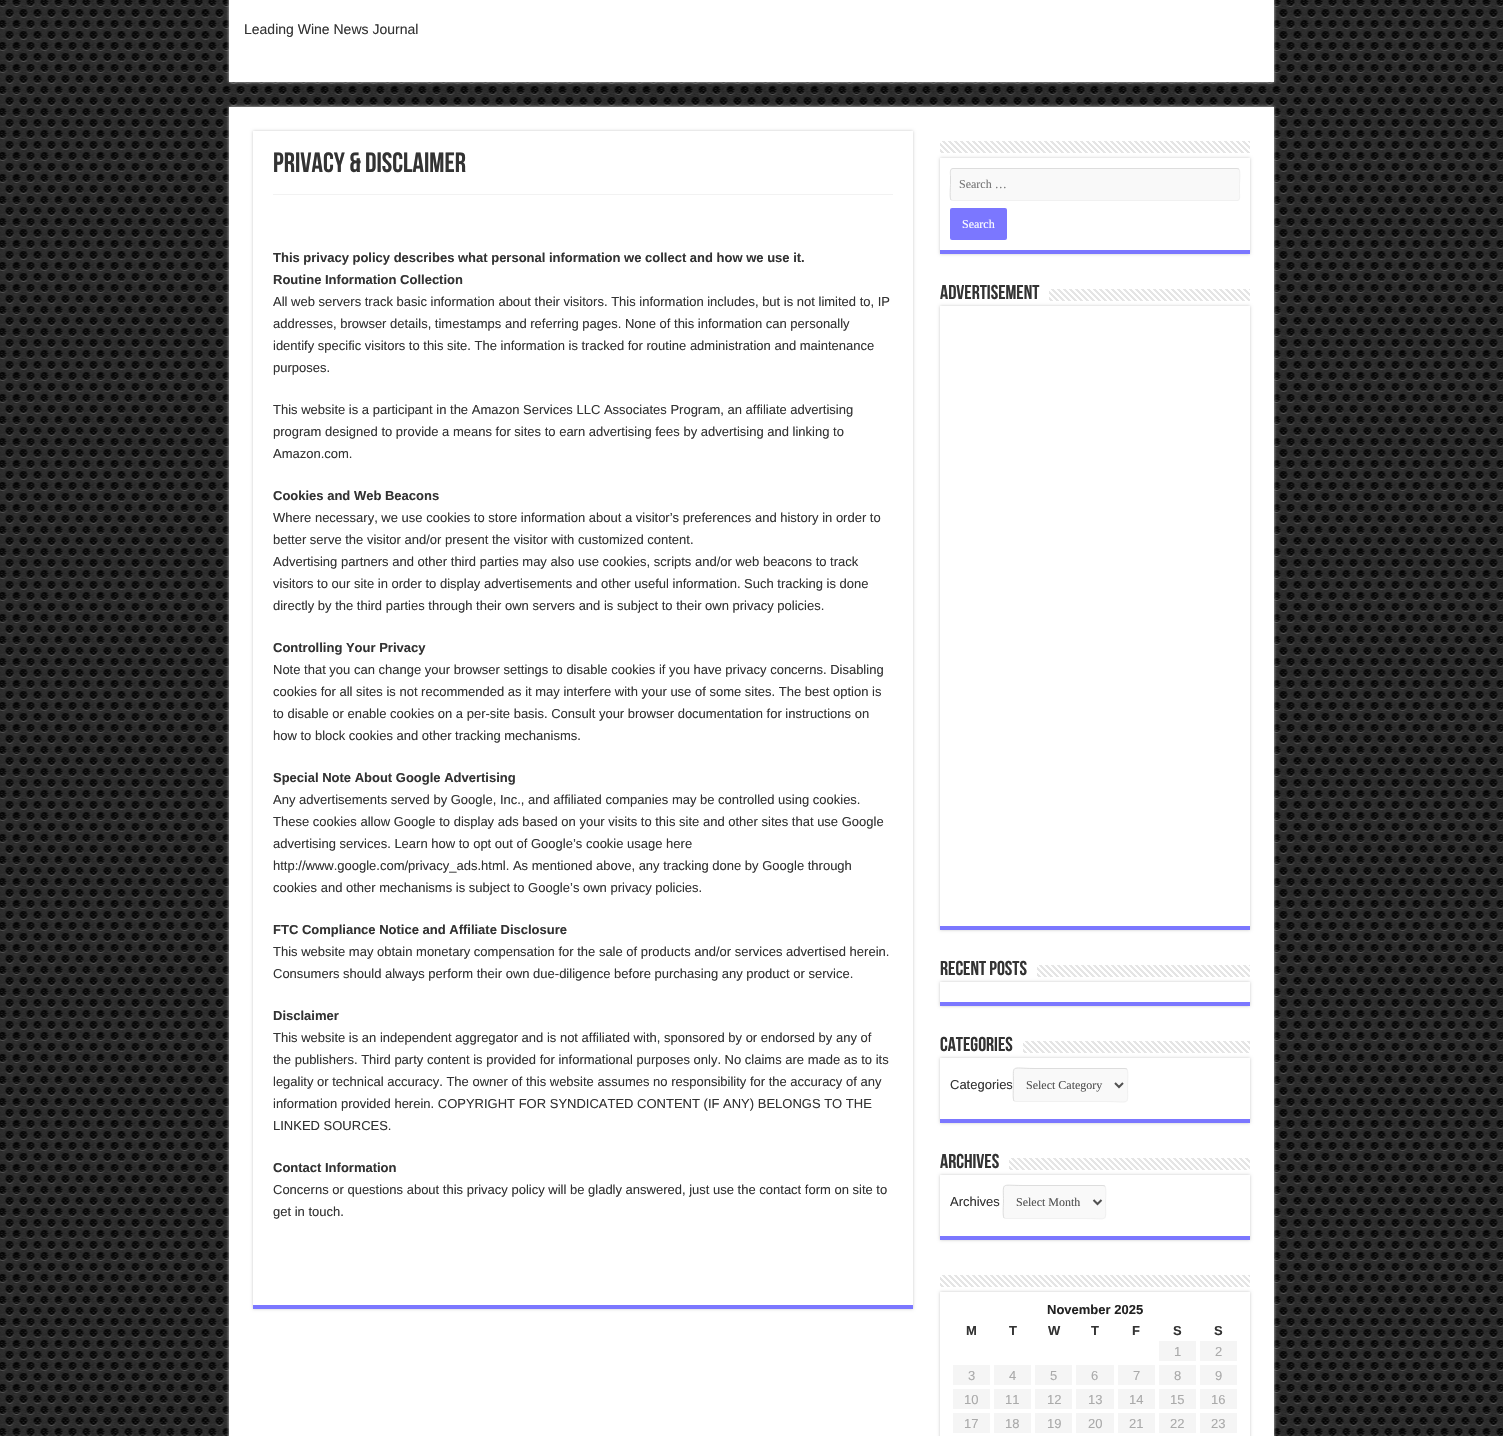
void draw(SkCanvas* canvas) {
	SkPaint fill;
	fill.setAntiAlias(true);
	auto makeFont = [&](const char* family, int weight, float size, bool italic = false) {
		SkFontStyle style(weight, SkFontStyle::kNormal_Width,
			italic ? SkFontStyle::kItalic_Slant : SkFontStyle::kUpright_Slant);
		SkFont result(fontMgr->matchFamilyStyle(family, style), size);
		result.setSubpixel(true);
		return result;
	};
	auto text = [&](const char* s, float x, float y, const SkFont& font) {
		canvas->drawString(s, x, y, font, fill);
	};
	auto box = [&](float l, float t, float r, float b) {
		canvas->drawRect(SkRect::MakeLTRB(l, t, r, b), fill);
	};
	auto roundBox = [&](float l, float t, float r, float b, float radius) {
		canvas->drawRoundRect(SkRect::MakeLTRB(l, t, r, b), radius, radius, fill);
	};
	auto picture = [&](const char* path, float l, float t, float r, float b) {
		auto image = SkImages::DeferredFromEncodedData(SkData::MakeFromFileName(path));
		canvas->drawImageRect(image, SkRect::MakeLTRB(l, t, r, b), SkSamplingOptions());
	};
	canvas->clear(0xFFFFFFFF);
	picture("image0.png", 0, 0, 1503, 1436);
	fill.setColor(0xFFCACACA);
	fill.setMaskFilter(SkMaskFilter::MakeBlur(kNormal_SkBlurStyle, 1.5f));
	canvas->drawRect(SkRect::MakeLTRB(229, -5, 1274, 82), fill);
	fill.setMaskFilter(nullptr);
	fill.setColor(0xFFFFFFFF);
	box(229, 0, 1274, 82);
	fill.setColor(0xFFCACACA);
	fill.setMaskFilter(SkMaskFilter::MakeBlur(kNormal_SkBlurStyle, 1.5f));
	canvas->drawRect(SkRect::MakeLTRB(229, 107, 1274, 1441), fill);
	fill.setMaskFilter(nullptr);
	fill.setColor(0xFFFFFFFF);
	box(229, 107, 1274, 1436);
	canvas->save();
	canvas->clipPath(SkPathBuilder(SkPathFillType::kEvenOdd).moveTo(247, 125).lineTo(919, 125).lineTo(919, 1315).lineTo(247, 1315).close().moveTo(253, 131).lineTo(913, 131).lineTo(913, 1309).lineTo(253, 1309).close().detach(), true);
	fill.setColor(0xFFCACACA);
	fill.setMaskFilter(SkMaskFilter::MakeBlur(kNormal_SkBlurStyle, 1.5f));
	canvas->drawRect(SkRect::MakeLTRB(253, 131, 913, 1309), fill);
	fill.setMaskFilter(nullptr);
	canvas->restore();
	fill.setColor(0xFF7B77FF);
	box(253, 1305, 913, 1309);
	fill.setColor(0xFFF2F2F2);
	box(273, 194, 893, 195);
	canvas->save();
	canvas->clipPath(SkPathBuilder(SkPathFillType::kEvenOdd).moveTo(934, 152).lineTo(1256, 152).lineTo(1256, 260).lineTo(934, 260).close().moveTo(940, 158).lineTo(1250, 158).lineTo(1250, 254).lineTo(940, 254).close().detach(), true);
	fill.setColor(0xFFCACACA);
	fill.setMaskFilter(SkMaskFilter::MakeBlur(kNormal_SkBlurStyle, 1.5f));
	canvas->drawRect(SkRect::MakeLTRB(940, 158, 1250, 254), fill);
	fill.setMaskFilter(nullptr);
	canvas->restore();
	picture("image1.png", 940, 141, 1250, 153);
	fill.setColor(0xFF7B77FF);
	box(940, 250, 1250, 254);
	fill.setColor(0xFFF9F9F9);
	roundBox(950, 168, 1240, 201, 3);
	fill.setStyle(SkPaint::kStroke_Style);
	fill.setStrokeWidth(1);
	fill.setColor(0xFFF1F1F1);
	canvas->drawPath(SkPathBuilder().moveTo(1239, 169).cubicTo(1240.5f, 171, 1239.5f, 182, 1239.5f, 184.5f).lineTo(1239.5f, 193.5f).cubicTo(1239.5f, 195.5f, 1240.5f, 200.5f, 1237, 200.5f).lineTo(953, 200.5f).lineTo(951, 200).detach(), fill);
	fill.setColor(0xFFDDDDDD);
	canvas->drawPath(SkPathBuilder().moveTo(951, 200).cubicTo(949.5f, 198, 950.5f, 187, 950.5f, 184.5f).lineTo(950.5f, 175.5f).cubicTo(950.5f, 173.5f, 949.5f, 168.5f, 953, 168.5f).lineTo(1237, 168.5f).lineTo(1239, 169).detach(), fill);
	fill.setStyle(SkPaint::kFill_Style);
	fill.setColor(0xFF7B77FF);
	roundBox(950, 208, 1007, 240, 2);
	canvas->save();
	canvas->clipPath(SkPathBuilder(SkPathFillType::kEvenOdd).moveTo(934, 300).lineTo(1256, 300).lineTo(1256, 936).lineTo(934, 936).close().moveTo(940, 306).lineTo(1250, 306).lineTo(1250, 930).lineTo(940, 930).close().detach(), true);
	fill.setColor(0xFFCACACA);
	fill.setMaskFilter(SkMaskFilter::MakeBlur(kNormal_SkBlurStyle, 1.5f));
	canvas->drawRect(SkRect::MakeLTRB(940, 306, 1250, 930), fill);
	fill.setMaskFilter(nullptr);
	canvas->restore();
	picture("image2.png", 1049, 289, 1250, 301);
	fill.setColor(0xFF7B77FF);
	box(940, 926, 1250, 930);
	canvas->save();
	canvas->clipPath(SkPathBuilder(SkPathFillType::kEvenOdd).moveTo(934, 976).lineTo(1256, 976).lineTo(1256, 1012).lineTo(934, 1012).close().moveTo(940, 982).lineTo(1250, 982).lineTo(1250, 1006).lineTo(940, 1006).close().detach(), true);
	fill.setColor(0xFFCACACA);
	fill.setMaskFilter(SkMaskFilter::MakeBlur(kNormal_SkBlurStyle, 1.5f));
	canvas->drawRect(SkRect::MakeLTRB(940, 982, 1250, 1006), fill);
	fill.setMaskFilter(nullptr);
	canvas->restore();
	picture("image3.png", 1037, 965, 1250, 977);
	fill.setColor(0xFF7B77FF);
	box(940, 1002, 1250, 1006);
	canvas->save();
	canvas->clipPath(SkPathBuilder(SkPathFillType::kEvenOdd).moveTo(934, 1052).lineTo(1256, 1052).lineTo(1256, 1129).lineTo(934, 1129).close().moveTo(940, 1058).lineTo(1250, 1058).lineTo(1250, 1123).lineTo(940, 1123).close().detach(), true);
	fill.setColor(0xFFCACACA);
	fill.setMaskFilter(SkMaskFilter::MakeBlur(kNormal_SkBlurStyle, 1.5f));
	canvas->drawRect(SkRect::MakeLTRB(940, 1058, 1250, 1123), fill);
	fill.setMaskFilter(nullptr);
	canvas->restore();
	picture("image4.png", 1023, 1041, 1250, 1053);
	fill.setColor(0xFF7B77FF);
	box(940, 1119, 1250, 1123);
	fill.setColor(0xFFF9F9F9);
	roundBox(1013, 1068, 1128, 1102, 3);
	fill.setStyle(SkPaint::kStroke_Style);
	fill.setColor(0xFFF1F1F1);
	canvas->drawPath(SkPathBuilder().moveTo(1127, 1069).cubicTo(1128.5f, 1071, 1127.5f, 1082.5f, 1127.5f, 1085).cubicTo(1127.5f, 1106.5f, 1131, 1101.5f, 1107, 1101.5f).lineTo(1016, 1101.5f).lineTo(1014, 1101).detach(), fill);
	canvas->save();
	canvas->clipPath(SkPathBuilder(SkPathFillType::kEvenOdd).moveTo(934, 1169).lineTo(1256, 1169).lineTo(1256, 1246).lineTo(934, 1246).close().moveTo(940, 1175).lineTo(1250, 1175).lineTo(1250, 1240).lineTo(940, 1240).close().detach(), true);
	fill.setStyle(SkPaint::kFill_Style);
	fill.setColor(0xFFCACACA);
	fill.setMaskFilter(SkMaskFilter::MakeBlur(kNormal_SkBlurStyle, 1.5f));
	canvas->drawRect(SkRect::MakeLTRB(940, 1175, 1250, 1240), fill);
	fill.setMaskFilter(nullptr);
	canvas->restore();
	picture("image5.png", 1009, 1158, 1250, 1170);
	fill.setColor(0xFF7B77FF);
	box(940, 1236, 1250, 1240);
	fill.setColor(0xFFF9F9F9);
	roundBox(1003, 1185, 1106, 1219, 3);
	fill.setStyle(SkPaint::kStroke_Style);
	fill.setColor(0xFFF1F1F1);
	canvas->drawPath(SkPathBuilder().moveTo(1105, 1186).cubicTo(1106.5f, 1188, 1105.5f, 1199.5f, 1105.5f, 1202).cubicTo(1105.5f, 1222.5f, 1109, 1218.5f, 1087, 1218.5f).lineTo(1006, 1218.5f).lineTo(1004, 1218).detach(), fill);
	fill.setColor(0xFFDDDDDD);
	canvas->drawPath(SkPathBuilder().moveTo(1004, 1218).cubicTo(1002.5f, 1216, 1003.5f, 1204.5f, 1003.5f, 1202).cubicTo(1003.5f, 1181.5f, 1000, 1185.5f, 1022, 1185.5f).lineTo(1103, 1185.5f).lineTo(1105, 1186).detach(), fill);
	fill.setStrokeWidth(2);
	fill.setColor(0xFF515151);
	canvas->drawPath(SkPathBuilder().moveTo(1093.5f, 1200).lineTo(1097.5f, 1204).lineTo(1101.5f, 1200).detach(), fill);
	canvas->save();
	canvas->clipPath(SkPathBuilder(SkPathFillType::kEvenOdd).moveTo(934, 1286).lineTo(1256, 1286).lineTo(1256, 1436).lineTo(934, 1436).close().moveTo(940, 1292).lineTo(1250, 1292).lineTo(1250, 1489).lineTo(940, 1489).close().detach(), true);
	fill.setStyle(SkPaint::kFill_Style);
	fill.setColor(0xFFCACACA);
	fill.setMaskFilter(SkMaskFilter::MakeBlur(kNormal_SkBlurStyle, 1.5f));
	canvas->drawRect(SkRect::MakeLTRB(940, 1292, 1250, 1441), fill);
	fill.setMaskFilter(nullptr);
	canvas->restore();
	picture("image1.png", 940, 1275, 1250, 1287);
	fill.setColor(0xFFF5F5F5);
	box(1159, 1341, 1196, 1361);
	box(1200, 1341, 1237, 1361);
	box(953, 1365, 990, 1385);
	box(994, 1365, 1031, 1385);
	box(1035, 1365, 1072, 1385);
	box(1076, 1365, 1114, 1385);
	box(1118, 1365, 1155, 1385);
	box(1159, 1365, 1196, 1385);
	box(1200, 1365, 1237, 1385);
	box(953, 1389, 990, 1409);
	box(994, 1389, 1031, 1409);
	box(1035, 1389, 1072, 1409);
	box(1076, 1389, 1114, 1409);
	box(1118, 1389, 1155, 1409);
	box(1159, 1389, 1196, 1409);
	box(1200, 1389, 1237, 1409);
	box(953, 1413, 990, 1433);
	box(994, 1413, 1031, 1433);
	box(1035, 1413, 1072, 1433);
	box(1076, 1413, 1114, 1433);
	box(1118, 1413, 1155, 1433);
	box(1159, 1413, 1196, 1433);
	box(1200, 1413, 1237, 1433);
	auto font1 = makeFont("Liberation Sans", 400, 14);
	fill.setColor(0xFF333333);
	text("Leading Wine News Journal", 244, 34, font1);
	auto font2 = makeFont("Bebas Neue", 700, 28);
	text("Privacy & Disclaimer", 273, 172, font2);
	auto font3 = makeFont("Liberation Sans", 700, 13);
	text("This privacy policy describes what personal information we collect and how we use it.", 273, 262, font3);
	text("Routine Information Collection", 273, 284, font3);
	auto font4 = makeFont("Liberation Sans", 400, 13);
	text("All web servers track basic information about their visitors. This information includes, but is not limited to, IP", 273, 306, font4);
	text("addresses, browser details, timestamps and referring pages. None of this information can personally", 273, 328, font4);
	text("identify specific visitors to this site. The information is tracked for routine administration and maintenance", 273, 350, font4);
	text("purposes.", 273, 372, font4);
	text("This website is a participant in the Amazon Services LLC Associates Program, an affiliate advertising", 273, 414, font4);
	text("program designed to provide a means for sites to earn advertising fees by advertising and linking to", 273, 436, font4);
	text("Amazon.com.", 273, 458, font4);
	text("Cookies and Web Beacons", 273, 500, font3);
	text("Where necessary, we use cookies to store information about a visitor’s preferences and history in order to", 273, 522, font4);
	text("better serve the visitor and/or present the visitor with customized content.", 273, 544, font4);
	text("Advertising partners and other third parties may also use cookies, scripts and/or web beacons to track", 273, 566, font4);
	text("visitors to our site in order to display advertisements and other useful information. Such tracking is done", 273, 588, font4);
	text("directly by the third parties through their own servers and is subject to their own privacy policies.", 273, 610, font4);
	text("Controlling Your Privacy", 273, 652, font3);
	text("Note that you can change your browser settings to disable cookies if you have privacy concerns. Disabling", 273, 674, font4);
	text("cookies for all sites is not recommended as it may interfere with your use of some sites. The best option is", 273, 696, font4);
	text("to disable or enable cookies on a per-site basis. Consult your browser documentation for instructions on", 273, 718, font4);
	text("how to block cookies and other tracking mechanisms.", 273, 740, font4);
	text("Special Note About Google Advertising", 273, 782, font3);
	text("Any advertisements served by Google, Inc., and affiliated companies may be controlled using cookies.", 273, 804, font4);
	text("These cookies allow Google to display ads based on your visits to this site and other sites that use Google", 273, 826, font4);
	text("advertising services. Learn how to opt out of Google’s cookie usage here", 273, 848, font4);
	text("http://www.google.com/privacy_ads.html. As mentioned above, any tracking done by Google through", 273, 870, font4);
	text("cookies and other mechanisms is subject to Google’s own privacy policies.", 273, 892, font4);
	text("FTC Compliance Notice and Affiliate Disclosure", 273, 934, font3);
	text("This website may obtain monetary compensation for the sale of products and/or services advertised herein.", 273, 956, font4);
	text("Consumers should always perform their own due-diligence before purchasing any product or service.", 273, 978, font4);
	text("Disclaimer", 273, 1020, font3);
	text("This website is an independent aggregator and is not affiliated with, sponsored by or endorsed by any of", 273, 1042, font4);
	text("the publishers. Third party content is provided for informational purposes only. No claims are made as to its", 273, 1064, font4);
	text("legality or technical accuracy. The owner of this website assumes no responsibility for the accuracy of any", 273, 1086, font4);
	text("information provided herein. COPYRIGHT FOR SYNDICATED CONTENT (IF ANY) BELONGS TO THE", 273, 1108, font4);
	text("LINKED SOURCES.", 273, 1130, font4);
	text("Contact Information", 273, 1172, font3);
	text("Concerns or questions about this privacy policy will be gladly answered, just use the contact form on site to", 273, 1194, font4);
	text("get in touch.", 273, 1216, font4);
	auto font5 = makeFont("Liberation Serif", 400, 12);
	fill.setColor(0xFF757575);
	text("Search …", 959, 188, font5);
	fill.setColor(0xFFFFFFFF);
	text("Search", 962, 228, font5);
	auto font6 = makeFont("Bebas Neue", 700, 20);
	fill.setColor(0xFF333333);
	text("Advertisement", 940, 299, font6);
	text("Recent Posts", 940, 975, font6);
	text("Categories", 940, 1051, font6);
	text("Categories", 950, 1089, font4);
	fill.setStyle(SkPaint::kStroke_Style);
	fill.setStrokeWidth(1);
	fill.setColor(0xFFDDDDDD);
	canvas->drawPath(SkPathBuilder().moveTo(1014, 1101).cubicTo(1012.5f, 1099, 1013.5f, 1087.5f, 1013.5f, 1085).cubicTo(1013.5f, 1063.5f, 1010, 1068.5f, 1034, 1068.5f).lineTo(1125, 1068.5f).lineTo(1127, 1069).detach(), fill);
	fill.setStrokeWidth(2);
	fill.setColor(0xFF515151);
	canvas->drawPath(SkPathBuilder().moveTo(1115, 1083).lineTo(1119, 1087).lineTo(1123, 1083).detach(), fill);
	fill.setStyle(SkPaint::kFill_Style);
	text("Select Category", 1026, 1089, font5);
	fill.setColor(0xFF333333);
	text("Archives", 940, 1168, font6);
	text("Archives", 950, 1206, font4);
	fill.setColor(0xFF515151);
	text("Select Month", 1016, 1206, font5);
	fill.setColor(0xFF222222);
	text("November 2025", 1047, 1314, font3);
	fill.setColor(0xFF333333);
	text("M", 966, 1335, font3);
	text("T", 1009, 1335, font3);
	text("W", 1048, 1335, font3);
	text("T", 1091, 1335, font3);
	text("F", 1132, 1335, font3);
	text("S", 1173, 1335, font3);
	text("S", 1214, 1335, font3);
	fill.setColor(0xFFAAAAAA);
	text("1", 1174, 1356, font4);
	text("2", 1215, 1356, font4);
	text("3", 968, 1380, font4);
	text("4", 1009, 1380, font4);
	text("5", 1050, 1380, font4);
	text("6", 1091, 1380, font4);
	text("7", 1133, 1380, font4);
	text("8", 1174, 1380, font4);
	text("9", 1215, 1380, font4);
	text("10", 964, 1404, font4);
	text("11", 1005, 1404, font4);
	text("12", 1047, 1404, font4);
	text("13", 1088, 1404, font4);
	text("14", 1129, 1404, font4);
	text("15", 1170, 1404, font4);
	text("16", 1211, 1404, font4);
	text("17", 964, 1428, font4);
	text("18", 1005, 1428, font4);
	text("19", 1047, 1428, font4);
	text("20", 1088, 1428, font4);
	text("21", 1129, 1428, font4);
	text("22", 1170, 1428, font4);
	text("23", 1211, 1428, font4);
}
